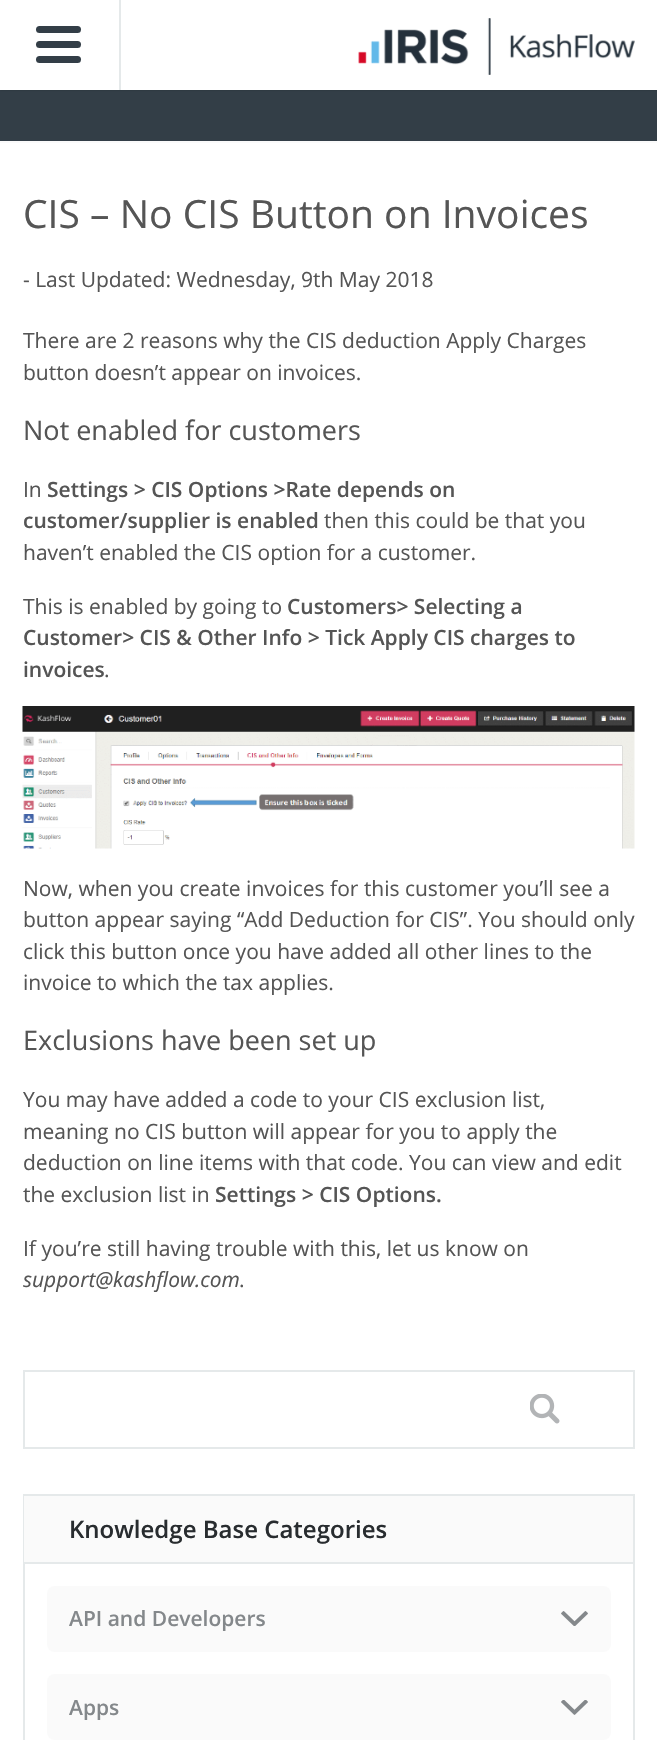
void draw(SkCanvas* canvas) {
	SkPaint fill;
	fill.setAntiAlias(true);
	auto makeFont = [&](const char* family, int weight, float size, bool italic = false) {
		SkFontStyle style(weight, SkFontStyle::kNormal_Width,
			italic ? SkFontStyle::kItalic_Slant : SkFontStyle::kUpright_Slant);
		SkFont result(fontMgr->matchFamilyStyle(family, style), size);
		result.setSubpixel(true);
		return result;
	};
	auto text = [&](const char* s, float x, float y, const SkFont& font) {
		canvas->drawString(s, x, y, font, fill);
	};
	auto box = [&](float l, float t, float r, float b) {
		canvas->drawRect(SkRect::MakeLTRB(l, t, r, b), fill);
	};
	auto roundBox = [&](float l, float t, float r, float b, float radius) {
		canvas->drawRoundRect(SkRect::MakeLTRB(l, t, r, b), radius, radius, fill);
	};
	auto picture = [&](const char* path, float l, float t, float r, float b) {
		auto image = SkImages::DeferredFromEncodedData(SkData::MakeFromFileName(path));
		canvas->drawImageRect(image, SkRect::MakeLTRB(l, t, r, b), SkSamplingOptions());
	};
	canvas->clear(0xFFFAFAFA);
	fill.setColor(0xFF333E47);
	box(0, 90, 657, 141);
	fill.setColor(0x36000000);
	fill.setMaskFilter(SkMaskFilter::MakeBlur(kNormal_SkBlurStyle, 1));
	canvas->drawRect(SkRect::MakeLTRB(0, 0, 657, 90), fill);
	fill.setMaskFilter(nullptr);
	fill.setColor(0xFFFFFFFF);
	box(0, 0, 657, 90);
	fill.setColor(0xFFE5E9EA);
	box(119, 0, 121, 90);
	fill.setColor(0xFF333E47);
	roundBox(36, 26, 81, 33, 3.5f);
	roundBox(36, 41, 81, 48, 3.5f);
	roundBox(36, 56, 81, 63, 3.5f);
	picture("image0.png", 358, 18, 635, 75);
	fill.setColor(0xFFFFFFFF);
	box(0, 143, 657, 1740);
	picture("image1.png", 22, 706, 635, 849);
	fill.setStyle(SkPaint::kStroke_Style);
	fill.setStrokeWidth(2);
	fill.setColor(0xFFE5E9EA);
	canvas->drawRect(SkRect::MakeLTRB(24, 1371, 634, 1448), fill);
	picture("image2.png", 530, 1394, 560, 1424);
	canvas->drawRect(SkRect::MakeLTRB(24, 1495, 634, 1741), fill);
	fill.setStyle(SkPaint::kFill_Style);
	fill.setColor(0xFFFAFAFA);
	box(24, 1496, 633, 1562);
	fill.setColor(0xFFE5E9EA);
	box(24, 1562, 633, 1564);
	fill.setColor(0xFFFAFAFA);
	roundBox(47, 1586, 611, 1652, 8);
	picture("image3.png", 561, 1611, 588, 1626);
	roundBox(47, 1674, 611, 1740, 8);
	picture("image4.png", 561, 1700, 588, 1715);
	auto font1 = makeFont("Open Sans", 400, 39);
	fill.setColor(0xFF555555);
	text("CIS – No CIS Button on Invoices", 23, 228, font1);
	auto font2 = makeFont("Open Sans", 400, 21);
	text("- Last Updated: Wednesday, 9th May 2018", 23, 287, font2);
	text("There are 2 reasons why the CIS deduction Apply Charges", 23, 348, font2);
	text("button doesn’t appear on invoices.", 23, 380, font2);
	auto font3 = makeFont("Open Sans", 400, 27);
	text("Not enabled for customers", 23, 440, font3);
	text("In", 23, 497, font2);
	auto font4 = makeFont("Open Sans", 600, 21);
	text("Settings > CIS Options >Rate depends on", 47, 497, font4);
	text("customer/supplier is enabled", 23, 528, font4);
	text("then this could be that you", 324, 528, font2);
	text("haven’t enabled the CIS option for a customer.", 23, 560, font2);
	text("This is enabled by going to", 23, 614, font2);
	text("Customers> Selecting a", 287, 614, font4);
	text("Customer> CIS & Other Info > Tick Apply CIS charges to", 23, 645, font4);
	text("invoices", 23, 677, font4);
	text(".", 104, 677, font2);
	text("Now, when you create invoices for this customer you’ll see a", 23, 896, font2);
	text("button appear saying “Add Deduction for CIS”. You should only", 23, 927, font2);
	text("click this button once you have added all other lines to the", 23, 959, font2);
	text("invoice to which the tax applies.", 23, 990, font2);
	text("Exclusions have been set up", 23, 1050, font3);
	text("You may have added a code to your CIS exclusion list,", 23, 1107, font2);
	text("meaning no CIS button will appear for you to apply the", 23, 1139, font2);
	text("deduction on line items with that code. You can view and edit", 23, 1170, font2);
	text("the exclusion list in", 23, 1202, font2);
	text("Settings > CIS Options.", 215, 1202, font4);
	text("If you’re still having trouble with this, let us know on", 23, 1256, font2);
	auto font5 = makeFont("Open Sans", 400, 21, true);
	text("support@kashflow.com", 23, 1287, font5);
	text(".", 239, 1287, font2);
	auto font6 = makeFont("Open Sans", 600, 24);
	fill.setColor(0xFF282C2F);
	text("Knowledge Base Categories", 69, 1538, font6);
	fill.setColor(0xFF84888B);
	text("API and Developers", 69, 1626, font4);
	text("Apps", 69, 1715, font4);
}
